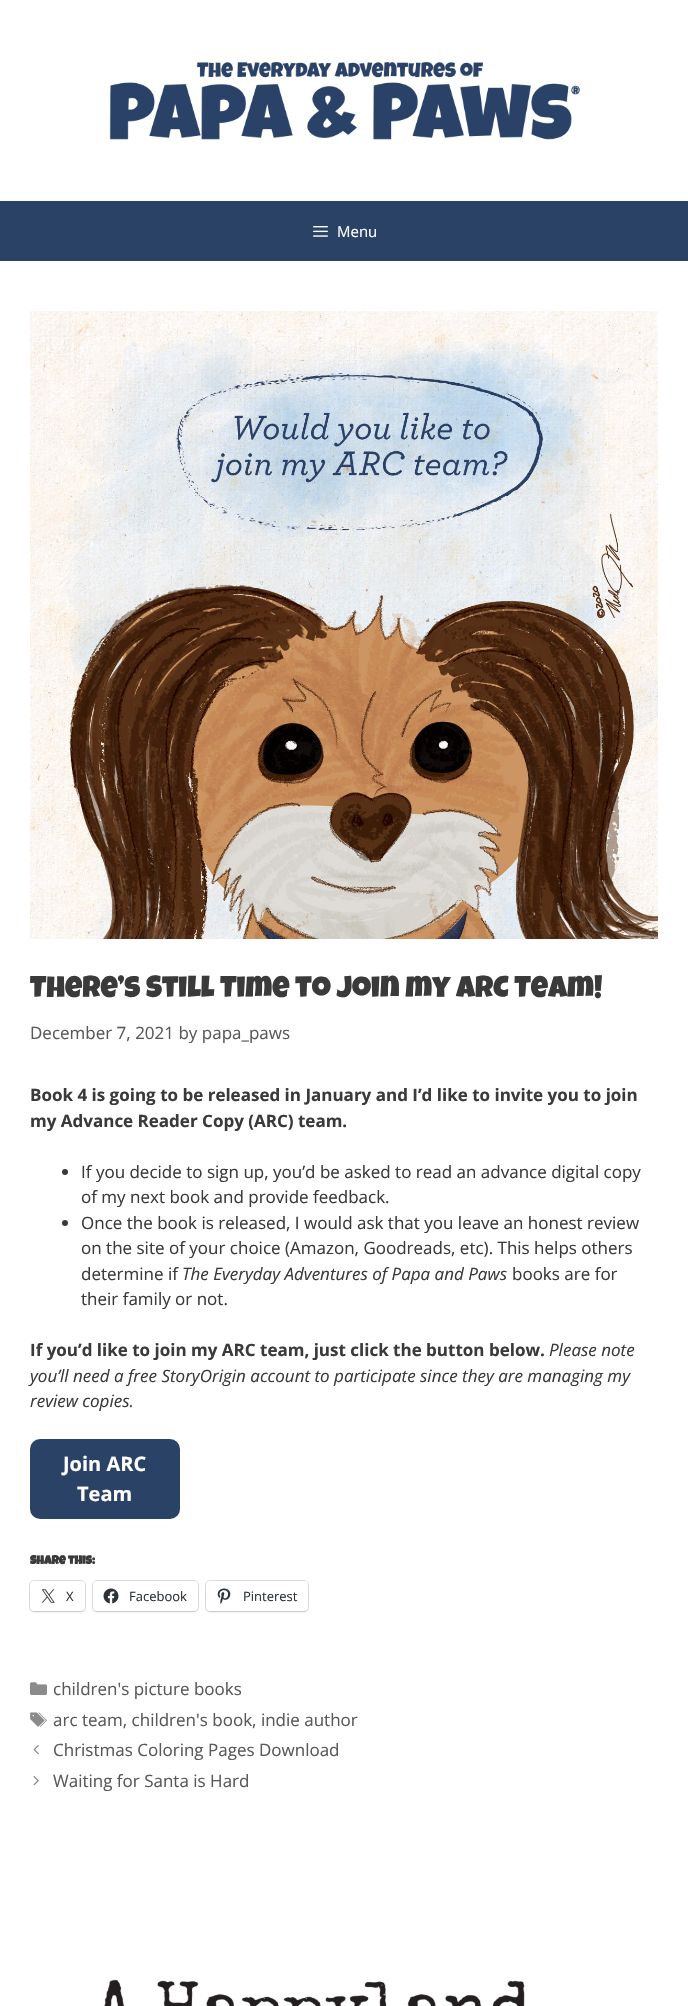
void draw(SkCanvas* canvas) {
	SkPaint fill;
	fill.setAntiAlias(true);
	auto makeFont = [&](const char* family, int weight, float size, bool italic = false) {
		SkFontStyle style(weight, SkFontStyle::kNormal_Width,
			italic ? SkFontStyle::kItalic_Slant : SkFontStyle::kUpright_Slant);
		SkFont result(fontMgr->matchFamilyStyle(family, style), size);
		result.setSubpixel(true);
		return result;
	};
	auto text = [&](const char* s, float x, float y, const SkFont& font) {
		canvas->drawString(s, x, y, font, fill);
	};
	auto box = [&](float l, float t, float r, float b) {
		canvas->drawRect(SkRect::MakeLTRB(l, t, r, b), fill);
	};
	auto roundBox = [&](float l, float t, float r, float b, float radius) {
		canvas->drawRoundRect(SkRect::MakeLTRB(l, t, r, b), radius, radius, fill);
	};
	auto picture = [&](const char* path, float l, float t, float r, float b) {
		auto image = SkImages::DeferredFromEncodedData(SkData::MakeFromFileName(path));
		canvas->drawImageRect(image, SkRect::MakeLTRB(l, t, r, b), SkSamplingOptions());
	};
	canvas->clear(0xFFFFFFFF);
	picture("image0.png", 109, 61, 580, 140);
	fill.setColor(0xFF2B4267);
	box(0, 201, 688, 261);
	picture("image1.png", 313, 226, 328, 237);
	picture("image2.png", 30, 311, 658, 939);
	fill.setColor(0xFF3A3A3A);
	canvas->drawCircle(65, 1172, 3, fill);
	canvas->drawCircle(65, 1223, 3, fill);
	fill.setColor(0xFF2B4267);
	roundBox(30, 1439, 180, 1519, 10);
	fill.setStyle(SkPaint::kStroke_Style);
	fill.setStrokeWidth(1);
	fill.setColor(0xFFE0E0E0);
	canvas->drawRoundRect(SkRect::MakeLTRB(29.5f, 1580.5f, 85.5f, 1611.5f), 4.5f, 4.5f, fill);
	fill.setStyle(SkPaint::kFill_Style);
	fill.setColor(0x1F000000);
	fill.setMaskFilter(SkMaskFilter::MakeBlur(kNormal_SkBlurStyle, 1));
	canvas->drawRoundRect(SkRect::MakeLTRB(30, 1582, 85, 1612), 4, 4, fill);
	fill.setMaskFilter(nullptr);
	fill.setColor(0xFFFFFFFF);
	roundBox(30, 1581, 85, 1611, 4);
	picture("image3.png", 41, 1589, 55, 1603);
	fill.setStyle(SkPaint::kStroke_Style);
	fill.setColor(0xFFE0E0E0);
	canvas->drawRoundRect(SkRect::MakeLTRB(92.5f, 1580.5f, 198.5f, 1611.5f), 4.5f, 4.5f, fill);
	fill.setStyle(SkPaint::kFill_Style);
	fill.setColor(0x1F000000);
	fill.setMaskFilter(SkMaskFilter::MakeBlur(kNormal_SkBlurStyle, 1));
	canvas->drawRoundRect(SkRect::MakeLTRB(93, 1582, 198, 1612), 4, 4, fill);
	fill.setMaskFilter(nullptr);
	fill.setColor(0xFFFFFFFF);
	roundBox(93, 1581, 198, 1611, 4);
	picture("image4.png", 103, 1588, 119, 1604);
	fill.setStyle(SkPaint::kStroke_Style);
	fill.setColor(0xFFE0E0E0);
	canvas->drawRoundRect(SkRect::MakeLTRB(205.5f, 1580.5f, 308.5f, 1611.5f), 4.5f, 4.5f, fill);
	fill.setStyle(SkPaint::kFill_Style);
	fill.setColor(0x1F000000);
	fill.setMaskFilter(SkMaskFilter::MakeBlur(kNormal_SkBlurStyle, 1));
	canvas->drawRoundRect(SkRect::MakeLTRB(206, 1582, 308, 1612), 4, 4, fill);
	fill.setMaskFilter(nullptr);
	fill.setColor(0xFFFFFFFF);
	roundBox(206, 1581, 308, 1611, 4);
	picture("image5.png", 217, 1588, 231, 1604);
	picture("image6.png", 30, 1682, 47, 1695);
	picture("image7.png", 30, 1712, 47, 1727);
	picture("image8.png", 33, 1745, 39, 1755);
	picture("image9.png", 33, 1776, 39, 1786);
	picture("image10.png", 104, 1979, 525, 2006);
	auto font1 = makeFont("Open Sans", 400, 15);
	text("Menu", 337, 237, font1);
	auto font2 = makeFont("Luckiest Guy", 400, 30);
	fill.setColor(0xFF3A3A3A);
	text("There’s Still Time to Join my ARC Team!", 30, 997, font2);
	auto font3 = makeFont("Open Sans", 400, 17);
	fill.setColor(0xFF595959);
	text("December 7, 2021 by papa_paws", 30, 1039, font3);
	auto font4 = makeFont("Open Sans", 700, 17);
	fill.setColor(0xFF3A3A3A);
	text("Book 4 is going to be released in January and I’d like to invite you to join", 30, 1101, font4);
	text("my Advance Reader Copy (ARC) team.", 30, 1127, font4);
	text("If you decide to sign up, you’d be asked to read an advance digital copy", 81, 1178, font3);
	text("of my next book and provide feedback.", 81, 1203, font3);
	text("Once the book is released, I would ask that you leave an honest review", 81, 1229, font3);
	text("on the site of your choice (Amazon, Goodreads, etc). This helps others", 81, 1254, font3);
	text("determine if", 81, 1280, font3);
	auto font5 = makeFont("Open Sans", 400, 17, true);
	text("The Everyday Adventures of Papa and Paws", 182, 1280, font5);
	text("books are for", 512, 1280, font3);
	text("their family or not.", 81, 1305, font3);
	text("If you’d like to join my ARC team, just click the button below.", 30, 1356, font4);
	text("Please note", 549, 1356, font5);
	text("you’ll need a free StoryOrigin account to participate since they are managing my", 30, 1382, font5);
	text("review copies.", 30, 1407, font5);
	auto font6 = makeFont("Open Sans", 700, 20);
	fill.setColor(0xFFFFFFFF);
	text("Join ARC", 63, 1471, font6);
	text("Team", 77, 1501, font6);
	auto font7 = makeFont("Luckiest Guy", 700, 12);
	fill.setColor(0xFF3A3A3A);
	text("Share this:", 30, 1564, font7);
	auto font8 = makeFont("Open Sans", 400, 13);
	fill.setColor(0xFF2C3338);
	text("X", 66, 1601, font8);
	text("Facebook", 129, 1601, font8);
	text("Pinterest", 243, 1601, font8);
	fill.setColor(0xFF595959);
	text("children's picture books", 53, 1695, font3);
	text("arc team, children's book, indie author", 53, 1726, font3);
	text("Christmas Coloring Pages Download", 53, 1756, font3);
	text("Waiting for Santa is Hard", 53, 1787, font3);
}
